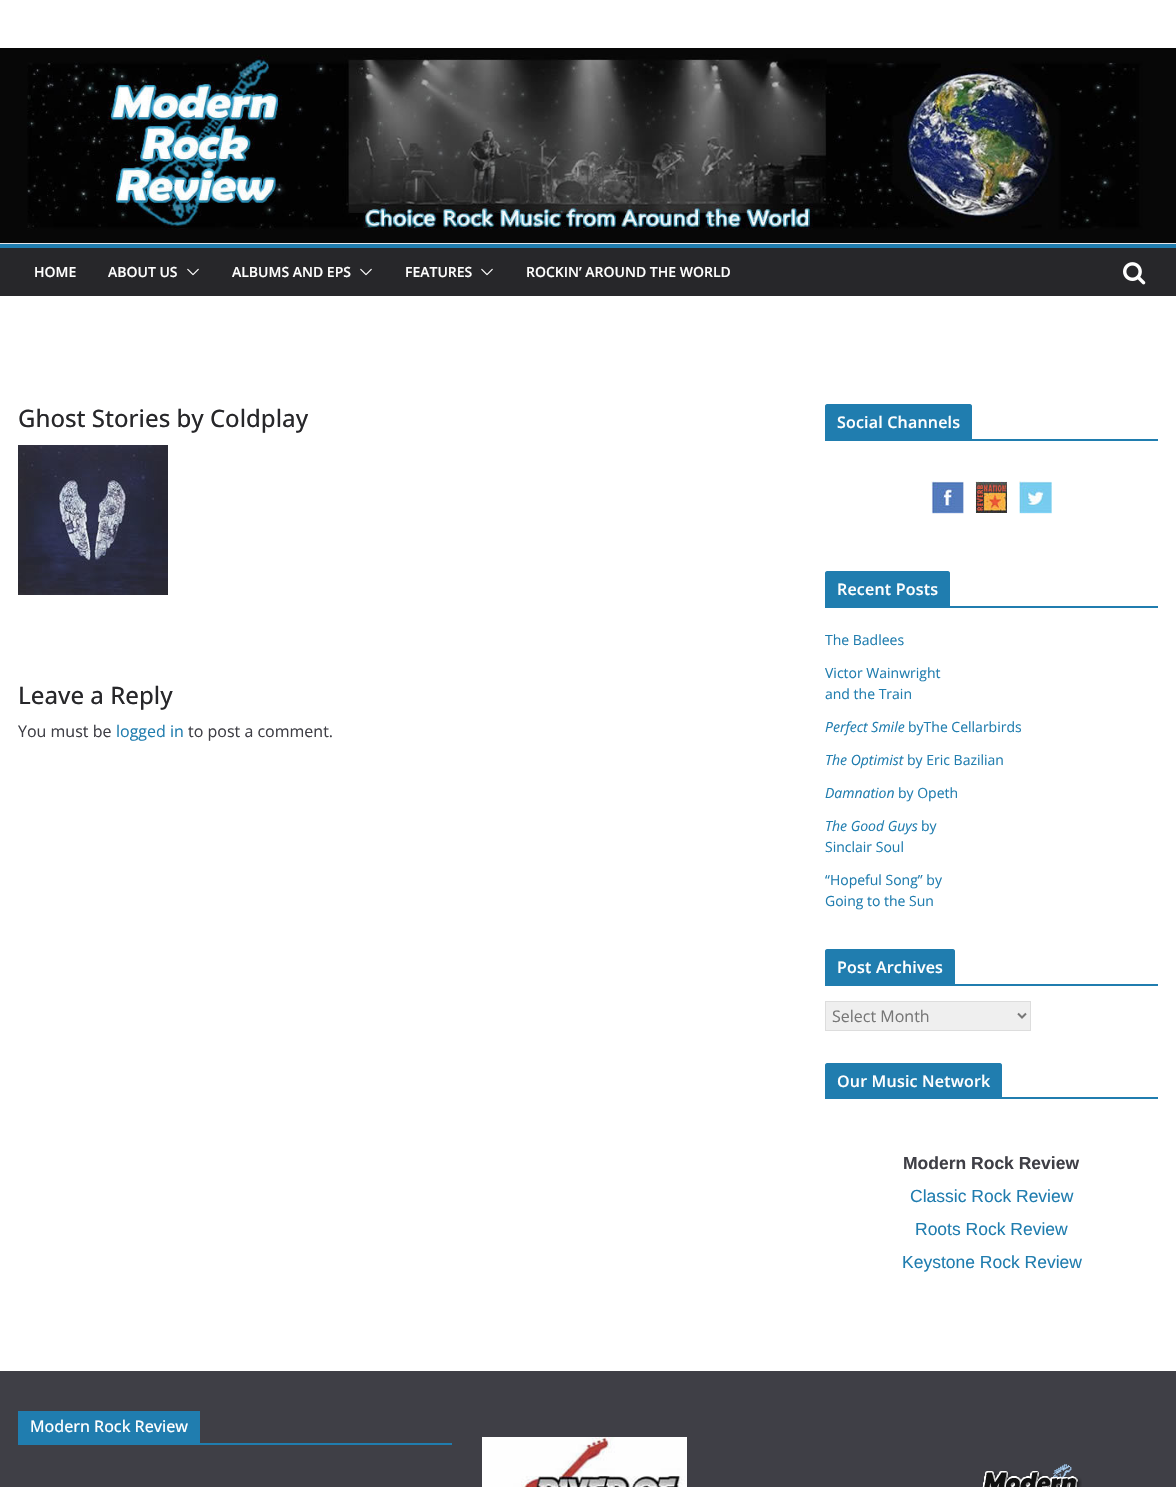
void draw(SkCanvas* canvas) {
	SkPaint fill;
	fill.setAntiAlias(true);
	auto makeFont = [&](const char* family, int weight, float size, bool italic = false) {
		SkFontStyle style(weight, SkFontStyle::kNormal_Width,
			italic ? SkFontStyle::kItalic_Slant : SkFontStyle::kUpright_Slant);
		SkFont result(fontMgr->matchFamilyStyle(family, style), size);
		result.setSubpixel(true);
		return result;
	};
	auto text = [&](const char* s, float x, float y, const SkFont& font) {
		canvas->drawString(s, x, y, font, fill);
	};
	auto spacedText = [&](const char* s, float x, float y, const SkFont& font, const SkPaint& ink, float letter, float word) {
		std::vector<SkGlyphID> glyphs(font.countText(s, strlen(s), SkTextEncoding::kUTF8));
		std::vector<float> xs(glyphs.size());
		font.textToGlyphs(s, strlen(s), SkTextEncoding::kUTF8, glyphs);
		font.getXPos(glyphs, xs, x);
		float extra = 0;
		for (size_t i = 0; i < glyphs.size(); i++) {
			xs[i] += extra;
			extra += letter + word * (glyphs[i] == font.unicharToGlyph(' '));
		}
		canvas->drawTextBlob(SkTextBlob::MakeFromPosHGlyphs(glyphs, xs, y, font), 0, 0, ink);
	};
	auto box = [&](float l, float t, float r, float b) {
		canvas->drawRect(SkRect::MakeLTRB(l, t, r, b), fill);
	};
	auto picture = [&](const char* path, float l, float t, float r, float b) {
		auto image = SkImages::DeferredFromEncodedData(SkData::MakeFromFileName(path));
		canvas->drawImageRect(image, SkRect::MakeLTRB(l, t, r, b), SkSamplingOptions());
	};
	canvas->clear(0xFFFFFFFF);
	picture("image0.png", 0, 48, 1176, 243);
	fill.setColor(0xFFE4E4E7);
	box(0, 243, 1176, 244);
	fill.setColor(0xFF27272A);
	box(0, 248, 1176, 296);
	fill.setColor(0xFF207DAF);
	box(0, 244, 1176, 248);
	picture("image1.png", 187, 268, 199, 276);
	picture("image1.png", 360, 268, 372, 276);
	picture("image1.png", 481, 268, 493, 276);
	picture("image2.png", 1123, 262, 1146, 285);
	picture("image3.png", 18, 445, 168, 595);
	box(825, 439, 1158, 441);
	canvas->drawPath(SkPathBuilder().moveTo(827, 404).lineTo(970, 404).cubicTo(971, 404, 972, 405, 972, 406).lineTo(972, 439).lineTo(825, 439).lineTo(825, 406).cubicTo(825, 405, 826, 404, 827, 404).close().detach(), fill);
	picture("image4.png", 931, 481, 964, 514);
	picture("image5.png", 975, 481, 1007, 513);
	picture("image6.png", 1019, 481, 1052, 514);
	box(825, 606, 1158, 608);
	canvas->drawPath(SkPathBuilder().moveTo(827, 571).lineTo(948, 571).cubicTo(949, 571, 950, 572, 950, 573).lineTo(950, 606).lineTo(825, 606).lineTo(825, 573).cubicTo(825, 572, 826, 571, 827, 571).close().detach(), fill);
	box(825, 984, 1158, 986);
	canvas->drawPath(SkPathBuilder().moveTo(827, 949).lineTo(953, 949).cubicTo(954, 949, 955, 950, 955, 951).lineTo(955, 984).lineTo(825, 984).lineTo(825, 951).cubicTo(825, 950, 826, 949, 827, 949).close().detach(), fill);
	fill.setColor(0xFFEFEFEF);
	canvas->drawRect(SkRect::MakeLTRB(825.5f, 1001.5f, 1030.5f, 1030.5f), fill);
	fill.setStyle(SkPaint::kStroke_Style);
	fill.setStrokeWidth(1);
	fill.setColor(0xFFDDDDDD);
	canvas->drawRect(SkRect::MakeLTRB(825.5f, 1001.5f, 1030.5f, 1030.5f), fill);
	fill.setStrokeWidth(2);
	fill.setColor(0xFF777777);
	canvas->drawPath(SkPathBuilder().moveTo(1018, 1013.5f).lineTo(1022, 1017.5f).lineTo(1026, 1013.5f).detach(), fill);
	fill.setStyle(SkPaint::kFill_Style);
	fill.setColor(0xFF207DAF);
	box(825, 1097, 1158, 1099);
	canvas->drawPath(SkPathBuilder().moveTo(827, 1063).lineTo(1000, 1063).cubicTo(1001, 1063, 1002, 1064, 1002, 1065).lineTo(1002, 1097).lineTo(825, 1097).lineTo(825, 1065).cubicTo(825, 1064, 826, 1063, 827, 1063).close().detach(), fill);
	fill.setColor(0xFF3F3F46);
	box(0, 1371, 1176, 1487);
	fill.setColor(0xFF207DAF);
	box(18, 1443, 452, 1445);
	box(18, 1411, 200, 1443);
	picture("image7.png", 482, 1437, 687, 1487);
	picture("image8.png", 982, 1464, 1082, 1487);
	auto font1 = makeFont("Open Sans", 600, 14);
	fill.setColor(0xFFFFFFFF);
	text("HOME", 34, 277, font1);
	text("ABOUT US", 108, 277, font1);
	text("ALBUMS AND EPS", 232, 277, font1);
	text("FEATURES", 405, 277, font1);
	text("ROCKIN’ AROUND THE WORLD", 526, 277, font1);
	auto font2 = makeFont("Open Sans", 500, 24);
	fill.setColor(0xFF27272A);
	text("Ghost Stories by Coldplay", 18, 427, font2);
	text("Leave a Reply", 18, 704, font2);
	auto font3 = makeFont("Open Sans", 400, 16);
	fill.setColor(0xFF3F3F46);
	text("You must be", 18, 737, font3);
	fill.setColor(0xFF207DAF);
	text("logged in", 116, 737, font3);
	fill.setColor(0xFF3F3F46);
	text("to post a comment.", 188, 737, font3);
	auto font4 = makeFont("Open Sans", 600, 16);
	fill.setColor(0xFFFFFFFF);
	spacedText("Social Channels", 837, 428, font4, fill, 0.2f, 0);
	spacedText("Recent Posts", 837, 595, font4, fill, 0.2f, 0);
	auto font5 = makeFont("Open Sans", 400, 14);
	fill.setColor(0xFF207DAF);
	text("The Badlees", 825, 645, font5);
	text("Victor Wainwright", 825, 678, font5);
	text("and the Train", 825, 699, font5);
	auto font6 = makeFont("Open Sans", 400, 14, true);
	text("Perfect Smile", 825, 732, font6);
	text("byThe Cellarbirds", 908, 732, font5);
	text("The Optimist", 825, 765, font6);
	text("by Eric Bazilian", 907, 765, font5);
	text("Damnation", 825, 798, font6);
	text("by Opeth", 898, 798, font5);
	text("The Good Guys", 825, 831, font6);
	text("by", 921, 831, font5);
	text("Sinclair Soul", 825, 852, font5);
	text("“Hopeful Song” by", 825, 885, font5);
	text("Going to the Sun", 825, 906, font5);
	fill.setColor(0xFFFFFFFF);
	spacedText("Post Archives", 837, 973, font4, fill, 0.2f, 0);
	fill.setColor(0xFF777777);
	text("Select Month", 832, 1022, font3);
	fill.setColor(0xFFFFFFFF);
	spacedText("Our Music Network", 837, 1087, font4, fill, 0.2f, 0);
	auto font7 = makeFont("Liberation Sans", 700, 17.5f);
	fill.setColor(0xFF3F3F46);
	text("Modern Rock Review", 903, 1169, font7);
	auto font8 = makeFont("Liberation Sans", 400, 17.5f);
	fill.setColor(0xFF207DAF);
	text("Classic Rock Review", 910, 1202, font8);
	text("Roots Rock Review", 915, 1235, font8);
	text("Keystone Rock Review", 902, 1268, font8);
	auto font9 = makeFont("Open Sans", 500, 16);
	fill.setColor(0xFFFFFFFF);
	text("Modern Rock Review", 30, 1432, font9);
}
